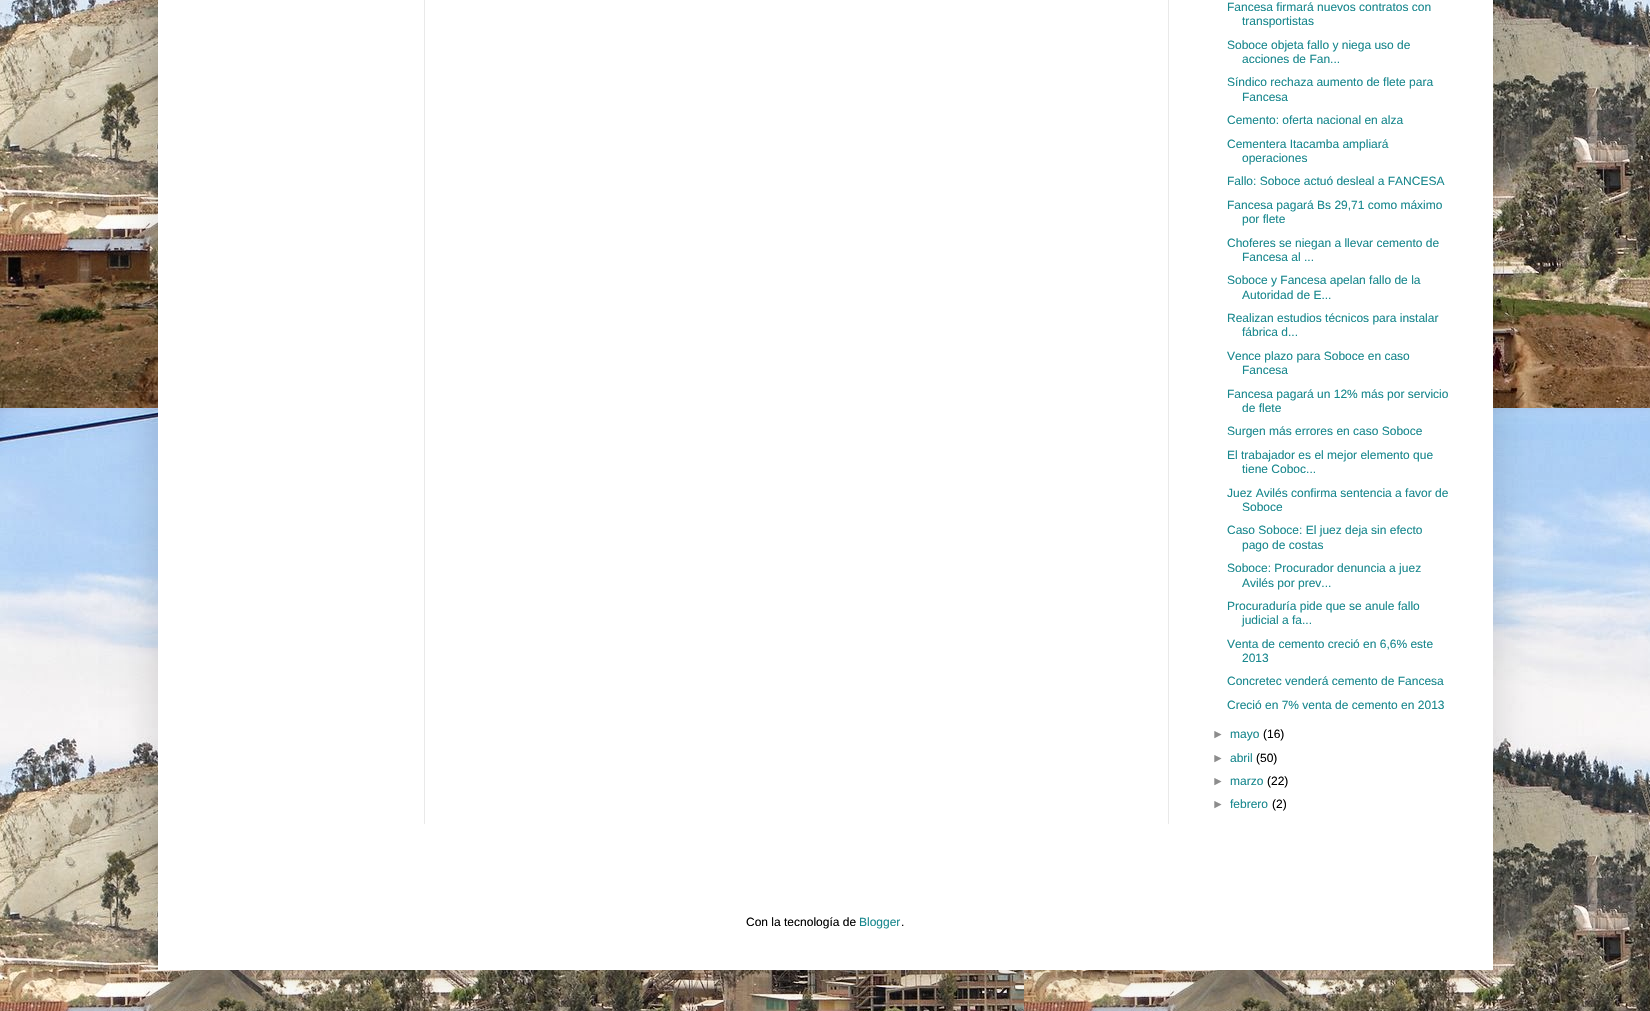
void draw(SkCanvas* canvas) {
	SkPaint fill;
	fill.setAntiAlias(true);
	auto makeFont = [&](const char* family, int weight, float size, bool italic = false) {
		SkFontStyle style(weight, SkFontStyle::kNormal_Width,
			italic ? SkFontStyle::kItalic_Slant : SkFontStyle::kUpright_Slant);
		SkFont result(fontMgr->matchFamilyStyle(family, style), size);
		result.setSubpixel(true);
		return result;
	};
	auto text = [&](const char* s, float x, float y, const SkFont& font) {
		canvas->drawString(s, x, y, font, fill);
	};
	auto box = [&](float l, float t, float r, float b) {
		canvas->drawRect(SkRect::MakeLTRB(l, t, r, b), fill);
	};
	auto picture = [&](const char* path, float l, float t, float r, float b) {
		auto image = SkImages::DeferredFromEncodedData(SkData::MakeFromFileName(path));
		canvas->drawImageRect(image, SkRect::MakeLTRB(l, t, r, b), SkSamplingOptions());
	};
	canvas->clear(0xFFFFFFFF);
	picture("image0.png", 0, 0, 1650, 1011);
	fill.setColor(0x26000000);
	fill.setMaskFilter(SkMaskFilter::MakeBlur(kNormal_SkBlurStyle, 20));
	canvas->drawRect(SkRect::MakeLTRB(158, -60, 1493, 970), fill);
	fill.setMaskFilter(nullptr);
	fill.setColor(0xFFFFFFFF);
	box(158, 0, 1493, 970);
	fill.setColor(0xFFE9E9E9);
	box(424, 0, 425, 824);
	box(1168, 0, 1169, 824);
	auto font1 = makeFont("Liberation Sans", 400, 12);
	fill.setColor(0xFF19888E);
	text("Fancesa firmará nuevos contratos con", 1227, 11, font1);
	text("transportistas", 1242, 25, font1);
	text("Soboce objeta fallo y niega uso de", 1227, 49, font1);
	text("acciones de Fan...", 1242, 63, font1);
	text("Síndico rechaza aumento de flete para", 1227, 86, font1);
	text("Fancesa", 1242, 101, font1);
	text("Cemento: oferta nacional en alza", 1227, 124, font1);
	text("Cementera Itacamba ampliará", 1227, 148, font1);
	text("operaciones", 1242, 162, font1);
	text("Fallo: Soboce actuó desleal a FANCESA", 1227, 185, font1);
	text("Fancesa pagará Bs 29,71 como máximo", 1227, 209, font1);
	text("por flete", 1242, 223, font1);
	text("Choferes se niegan a llevar cemento de", 1227, 247, font1);
	text("Fancesa al ...", 1242, 261, font1);
	text("Soboce y Fancesa apelan fallo de la", 1227, 284, font1);
	text("Autoridad de E...", 1242, 299, font1);
	text("Realizan estudios técnicos para instalar", 1227, 322, font1);
	text("fábrica d...", 1242, 336, font1);
	text("Vence plazo para Soboce en caso", 1227, 360, font1);
	text("Fancesa", 1242, 374, font1);
	text("Fancesa pagará un 12% más por servicio", 1227, 398, font1);
	text("de flete", 1242, 412, font1);
	text("Surgen más errores en caso Soboce", 1227, 435, font1);
	text("El trabajador es el mejor elemento que", 1227, 459, font1);
	text("tiene Coboc...", 1242, 473, font1);
	text("Juez Avilés confirma sentencia a favor de", 1227, 497, font1);
	text("Soboce", 1242, 511, font1);
	text("Caso Soboce: El juez deja sin efecto", 1227, 534, font1);
	text("pago de costas", 1242, 549, font1);
	text("Soboce: Procurador denuncia a juez", 1227, 572, font1);
	text("Avilés por prev...", 1242, 587, font1);
	text("Procuraduría pide que se anule fallo", 1227, 610, font1);
	text("judicial a fa...", 1242, 624, font1);
	text("Venta de cemento creció en 6,6% este", 1227, 648, font1);
	text("2013", 1242, 662, font1);
	text("Concretec venderá cemento de Fancesa", 1227, 685, font1);
	text("Creció en 7% venta de cemento en 2013", 1227, 709, font1);
	fill.setColor(0xFF8D8D8D);
	text("►", 1212, 738, font1);
	fill.setColor(0xFF19888E);
	text("mayo", 1230, 738, font1);
	fill.setColor(0xFF000000);
	text("(16)", 1263, 738, font1);
	fill.setColor(0xFF8D8D8D);
	text("►", 1212, 762, font1);
	fill.setColor(0xFF19888E);
	text("abril", 1230, 762, font1);
	fill.setColor(0xFF000000);
	text("(50)", 1256, 762, font1);
	fill.setColor(0xFF8D8D8D);
	text("►", 1212, 785, font1);
	fill.setColor(0xFF19888E);
	text("marzo", 1230, 785, font1);
	fill.setColor(0xFF000000);
	text("(22)", 1267, 785, font1);
	fill.setColor(0xFF8D8D8D);
	text("►", 1212, 808, font1);
	fill.setColor(0xFF19888E);
	text("febrero", 1230, 808, font1);
	fill.setColor(0xFF000000);
	text("(2)", 1272, 808, font1);
	text("Con la tecnología de", 746, 926, font1);
	fill.setColor(0xFF19888E);
	text("Blogger", 859, 926, font1);
	fill.setColor(0xFF000000);
	text(".", 901, 926, font1);
}
